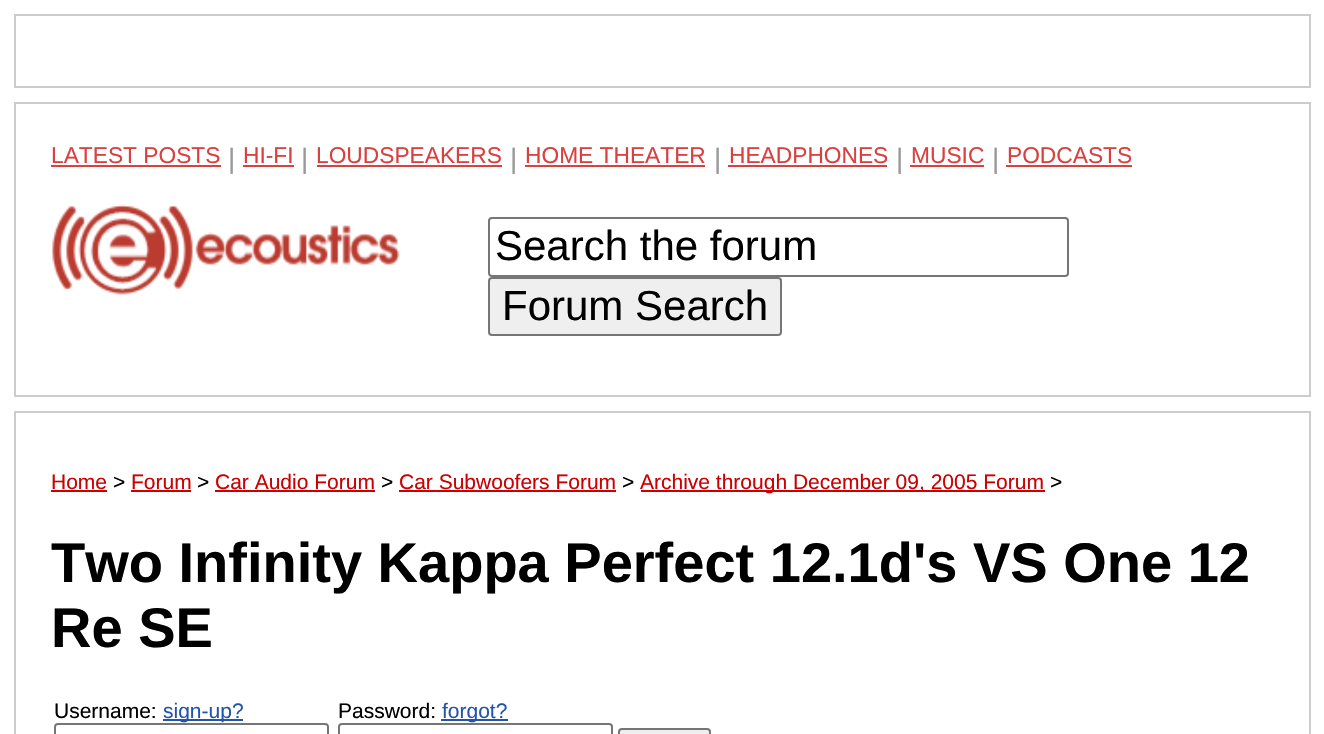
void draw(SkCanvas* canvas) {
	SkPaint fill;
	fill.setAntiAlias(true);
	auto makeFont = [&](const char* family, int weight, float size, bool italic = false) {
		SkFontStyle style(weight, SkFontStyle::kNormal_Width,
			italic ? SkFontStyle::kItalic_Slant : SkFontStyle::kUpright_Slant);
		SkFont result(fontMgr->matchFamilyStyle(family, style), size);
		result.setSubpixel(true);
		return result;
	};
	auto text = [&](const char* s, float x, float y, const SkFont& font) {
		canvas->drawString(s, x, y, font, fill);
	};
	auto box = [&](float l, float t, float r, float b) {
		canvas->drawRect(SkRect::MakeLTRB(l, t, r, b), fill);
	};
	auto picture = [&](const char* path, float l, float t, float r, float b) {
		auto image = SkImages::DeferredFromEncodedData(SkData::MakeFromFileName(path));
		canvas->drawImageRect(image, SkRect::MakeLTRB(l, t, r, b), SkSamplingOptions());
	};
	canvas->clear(0xFFFFFFFF);
	fill.setStyle(SkPaint::kStroke_Style);
	fill.setStrokeWidth(2);
	fill.setColor(0xFFCCCCCC);
	canvas->drawRect(SkRect::MakeLTRB(15, 15, 1310, 87), fill);
	canvas->drawRect(SkRect::MakeLTRB(15, 103, 1310, 396), fill);
	fill.setStyle(SkPaint::kFill_Style);
	fill.setColor(0xFFD94040);
	box(51, 165, 221, 167);
	box(243, 165, 294, 167);
	box(317, 165, 502, 167);
	box(525, 165, 705, 167);
	box(728, 165, 887, 167);
	box(910, 165, 984, 167);
	box(1006, 165, 1132, 167);
	picture("image0.png", 52, 204, 400, 295);
	fill.setStyle(SkPaint::kStroke_Style);
	fill.setColor(0xFF767676);
	canvas->drawRoundRect(SkRect::MakeLTRB(489, 218, 1068, 276), 3, 3, fill);
	fill.setStyle(SkPaint::kFill_Style);
	fill.setColor(0xFFEFEFEF);
	canvas->drawRoundRect(SkRect::MakeLTRB(489, 278, 781, 335), 3, 3, fill);
	fill.setStyle(SkPaint::kStroke_Style);
	fill.setColor(0xFF767676);
	canvas->drawRoundRect(SkRect::MakeLTRB(489, 278, 781, 335), 3, 3, fill);
	fill.setColor(0xFFCCCCCC);
	canvas->drawRect(SkRect::MakeLTRB(15, 412, 1310, 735), fill);
	fill.setStyle(SkPaint::kFill_Style);
	fill.setColor(0xFFCC0000);
	box(51, 490, 107, 492);
	box(131, 490, 191, 492);
	box(215, 490, 375, 492);
	box(399, 490, 616, 492);
	box(641, 490, 1045, 492);
	fill.setColor(0xFF2255AA);
	box(163, 719, 243, 721);
	fill.setStyle(SkPaint::kStroke_Style);
	fill.setColor(0xFF767676);
	canvas->drawRoundRect(SkRect::MakeLTRB(55, 724, 328, 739), 3, 3, fill);
	fill.setStyle(SkPaint::kFill_Style);
	fill.setColor(0xFF2255AA);
	box(441, 719, 508, 721);
	fill.setStyle(SkPaint::kStroke_Style);
	fill.setColor(0xFF767676);
	canvas->drawRoundRect(SkRect::MakeLTRB(339, 724, 612, 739), 3, 3, fill);
	fill.setStyle(SkPaint::kFill_Style);
	fill.setColor(0xFFEFEFEF);
	canvas->drawRoundRect(SkRect::MakeLTRB(619, 729, 710, 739), 3, 3, fill);
	fill.setStyle(SkPaint::kStroke_Style);
	fill.setColor(0xFF767676);
	canvas->drawRoundRect(SkRect::MakeLTRB(619, 729, 710, 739), 3, 3, fill);
	auto font1 = makeFont("Liberation Sans", 400, 22.75f);
	fill.setStyle(SkPaint::kFill_Style);
	fill.setColor(0xFFD94040);
	text("LATEST POSTS", 51, 163, font1);
	auto font2 = makeFont("Liberation Sans", 400, 28);
	fill.setColor(0xFF999999);
	text("|", 228, 168, font2);
	fill.setColor(0xFFD94040);
	text("HI-FI", 243, 163, font1);
	fill.setColor(0xFF999999);
	text("|", 301, 168, font2);
	fill.setColor(0xFFD94040);
	text("LOUDSPEAKERS", 316, 163, font1);
	fill.setColor(0xFF999999);
	text("|", 510, 168, font2);
	fill.setColor(0xFFD94040);
	text("HOME THEATER", 525, 163, font1);
	fill.setColor(0xFF999999);
	text("|", 714, 168, font2);
	fill.setColor(0xFFD94040);
	text("HEADPHONES", 729, 163, font1);
	fill.setColor(0xFF999999);
	text("|", 896, 168, font2);
	fill.setColor(0xFFD94040);
	text("MUSIC", 911, 163, font1);
	fill.setColor(0xFF999999);
	text("|", 992, 168, font2);
	fill.setColor(0xFFD94040);
	text("PODCASTS", 1007, 163, font1);
	auto font3 = makeFont("Liberation Sans", 400, 42);
	fill.setColor(0xFF000000);
	text("Search the forum", 495, 260, font3);
	text("Forum Search", 502, 320, font3);
	auto font4 = makeFont("Liberation Sans", 400, 21);
	fill.setColor(0xFFCC0000);
	text("Home", 51, 489, font4);
	fill.setColor(0xFF000000);
	text(">", 113, 489, font4);
	fill.setColor(0xFFCC0000);
	text("Forum", 131, 489, font4);
	fill.setColor(0xFF000000);
	text(">", 197, 489, font4);
	fill.setColor(0xFFCC0000);
	text("Car Audio Forum", 215, 489, font4);
	fill.setColor(0xFF000000);
	text(">", 381, 489, font4);
	fill.setColor(0xFFCC0000);
	text("Car Subwoofers Forum", 399, 489, font4);
	fill.setColor(0xFF000000);
	text(">", 622, 489, font4);
	fill.setColor(0xFFCC0000);
	text("Archive through December 09, 2005 Forum", 640, 489, font4);
	fill.setColor(0xFF000000);
	text(">", 1050, 489, font4);
	auto font5 = makeFont("Liberation Sans", 700, 56);
	text("Two Infinity Kappa Perfect 12.1d's VS One 12", 51, 582, font5);
	text("Re SE", 51, 647, font5);
	text("Username:", 54, 718, font4);
	fill.setColor(0xFF2255AA);
	text("sign-up?", 163, 718, font4);
	fill.setColor(0xFF000000);
	text("Password:", 338, 718, font4);
	fill.setColor(0xFF2255AA);
	text("forgot?", 442, 718, font4);
}
